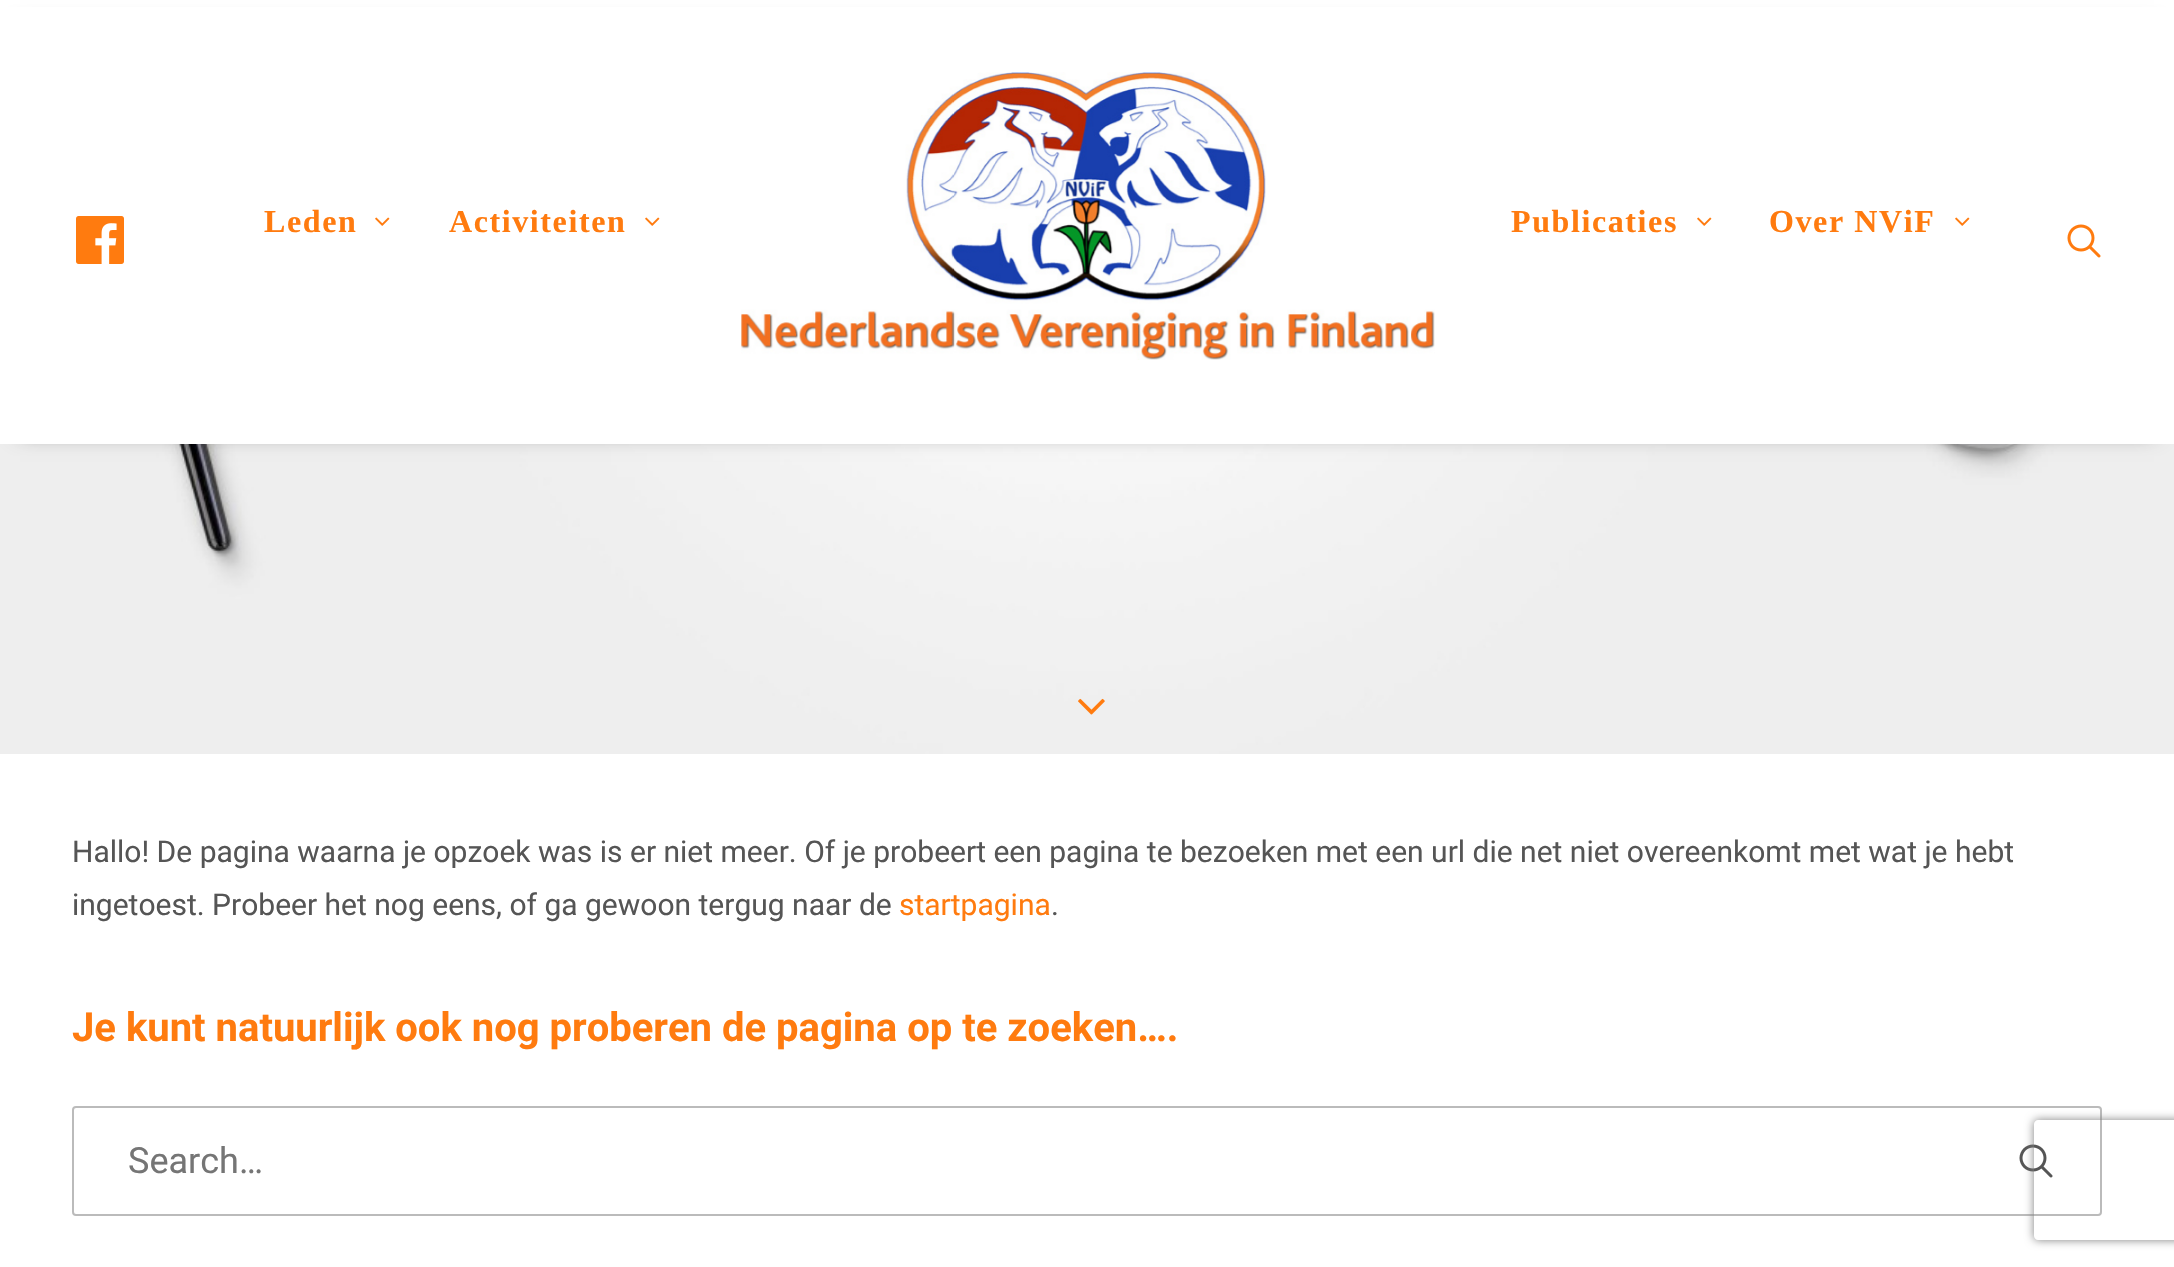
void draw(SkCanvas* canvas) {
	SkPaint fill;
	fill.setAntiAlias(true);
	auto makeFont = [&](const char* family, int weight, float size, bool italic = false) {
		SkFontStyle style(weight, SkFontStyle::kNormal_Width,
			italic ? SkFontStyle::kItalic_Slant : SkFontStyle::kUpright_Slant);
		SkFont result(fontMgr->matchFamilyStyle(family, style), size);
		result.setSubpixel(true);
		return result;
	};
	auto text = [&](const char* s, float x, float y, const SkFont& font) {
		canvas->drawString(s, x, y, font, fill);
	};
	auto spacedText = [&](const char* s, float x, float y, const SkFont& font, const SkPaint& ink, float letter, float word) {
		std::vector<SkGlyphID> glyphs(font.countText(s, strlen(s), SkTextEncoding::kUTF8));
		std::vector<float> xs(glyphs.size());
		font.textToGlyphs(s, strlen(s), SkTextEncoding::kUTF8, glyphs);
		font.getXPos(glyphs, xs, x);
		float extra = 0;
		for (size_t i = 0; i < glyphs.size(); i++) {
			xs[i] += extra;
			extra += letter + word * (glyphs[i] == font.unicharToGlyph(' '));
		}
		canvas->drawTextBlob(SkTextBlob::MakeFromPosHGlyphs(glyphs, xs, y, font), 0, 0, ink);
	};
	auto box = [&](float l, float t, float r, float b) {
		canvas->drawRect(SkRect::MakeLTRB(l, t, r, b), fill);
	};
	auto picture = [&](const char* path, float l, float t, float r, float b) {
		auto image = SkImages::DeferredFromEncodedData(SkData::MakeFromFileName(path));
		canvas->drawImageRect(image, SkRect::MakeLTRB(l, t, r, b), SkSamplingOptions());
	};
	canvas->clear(0xFFFFFFFF);
	picture("image4.png", 0, 444, 2174, 754);
	fill.setColor(0x99000000);
	fill.setMaskFilter(SkMaskFilter::MakeBlur(kNormal_SkBlurStyle, 10));
	canvas->drawRect(SkRect::MakeLTRB(20, 28, 2154, 432), fill);
	fill.setMaskFilter(nullptr);
	fill.setColor(0xFFFFFFFF);
	box(0, 7, 2174, 444);
	picture("image0.png", 76, 216, 124, 264);
	picture("image1.png", 375, 217, 390, 226);
	picture("image1.png", 645, 217, 660, 226);
	picture("image2.png", 741, 72, 1435, 360);
	picture("image1.png", 1697, 217, 1712, 226);
	picture("image1.png", 1955, 217, 1970, 226);
	picture("image3.png", 2067, 224, 2101, 258);
	picture("image5.png", 1078, 698, 1105, 715);
	fill.setStyle(SkPaint::kStroke_Style);
	fill.setStrokeWidth(2);
	fill.setColor(0xFFBBBBBB);
	canvas->drawRoundRect(SkRect::MakeLTRB(73, 1107, 2101, 1215), 3, 3, fill);
	picture("image6.png", 2019, 1144, 2053, 1178);
	canvas->save();
	canvas->clipPath(SkPathBuilder(SkPathFillType::kEvenOdd).moveTo(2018, 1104).lineTo(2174, 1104).lineTo(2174, 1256).lineTo(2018, 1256).close().moveTo(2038, 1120).lineTo(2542, 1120).cubicTo(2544, 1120, 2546, 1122, 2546, 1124).lineTo(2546, 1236).cubicTo(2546, 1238, 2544, 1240, 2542, 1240).lineTo(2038, 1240).cubicTo(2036, 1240, 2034, 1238, 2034, 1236).lineTo(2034, 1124).cubicTo(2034, 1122, 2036, 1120, 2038, 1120).close().detach(), true);
	fill.setStyle(SkPaint::kFill_Style);
	fill.setColor(0xFF808080);
	fill.setMaskFilter(SkMaskFilter::MakeBlur(kNormal_SkBlurStyle, 5));
	canvas->drawRoundRect(SkRect::MakeLTRB(2034, 1120, 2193, 1240), 4, 4, fill);
	fill.setMaskFilter(nullptr);
	canvas->restore();
	auto font1 = makeFont("Liberation Serif", 700, 32);
	fill.setColor(0xFFFF7B0F);
	spacedText("Leden", 264, 232, font1, fill, 1.6f, 0);
	spacedText("Activiteiten", 449, 232, font1, fill, 1.6f, 0);
	spacedText("Publicaties", 1511, 232, font1, fill, 1.6f, 0);
	spacedText("Over NViF", 1769, 232, font1, fill, 1.6f, 0);
	auto font2 = makeFont("Roboto", 400, 30);
	fill.setColor(0xFF555555);
	text("Hallo! De pagina waarna je opzoek was is er niet meer. Of je probeert een pagina te bezoeken met een url die net niet overeenkomt met wat je hebt", 72, 862, font2);
	text("ingetoest. Probeer het nog eens, of ga gewoon tergug naar de", 72, 915, font2);
	fill.setColor(0xFFFF7B0F);
	text("startpagina", 899, 915, font2);
	fill.setColor(0xFF555555);
	text(".", 1051, 915, font2);
	auto font3 = makeFont("Roboto", 700, 40);
	fill.setColor(0xFFFF7B0F);
	text("Je kunt natuurlijk ook nog proberen de pagina op te zoeken….", 72, 1041, font3);
	auto font4 = makeFont("Roboto", 400, 36);
	fill.setColor(0xFF757575);
	text("Search…", 128, 1173, font4);
}
